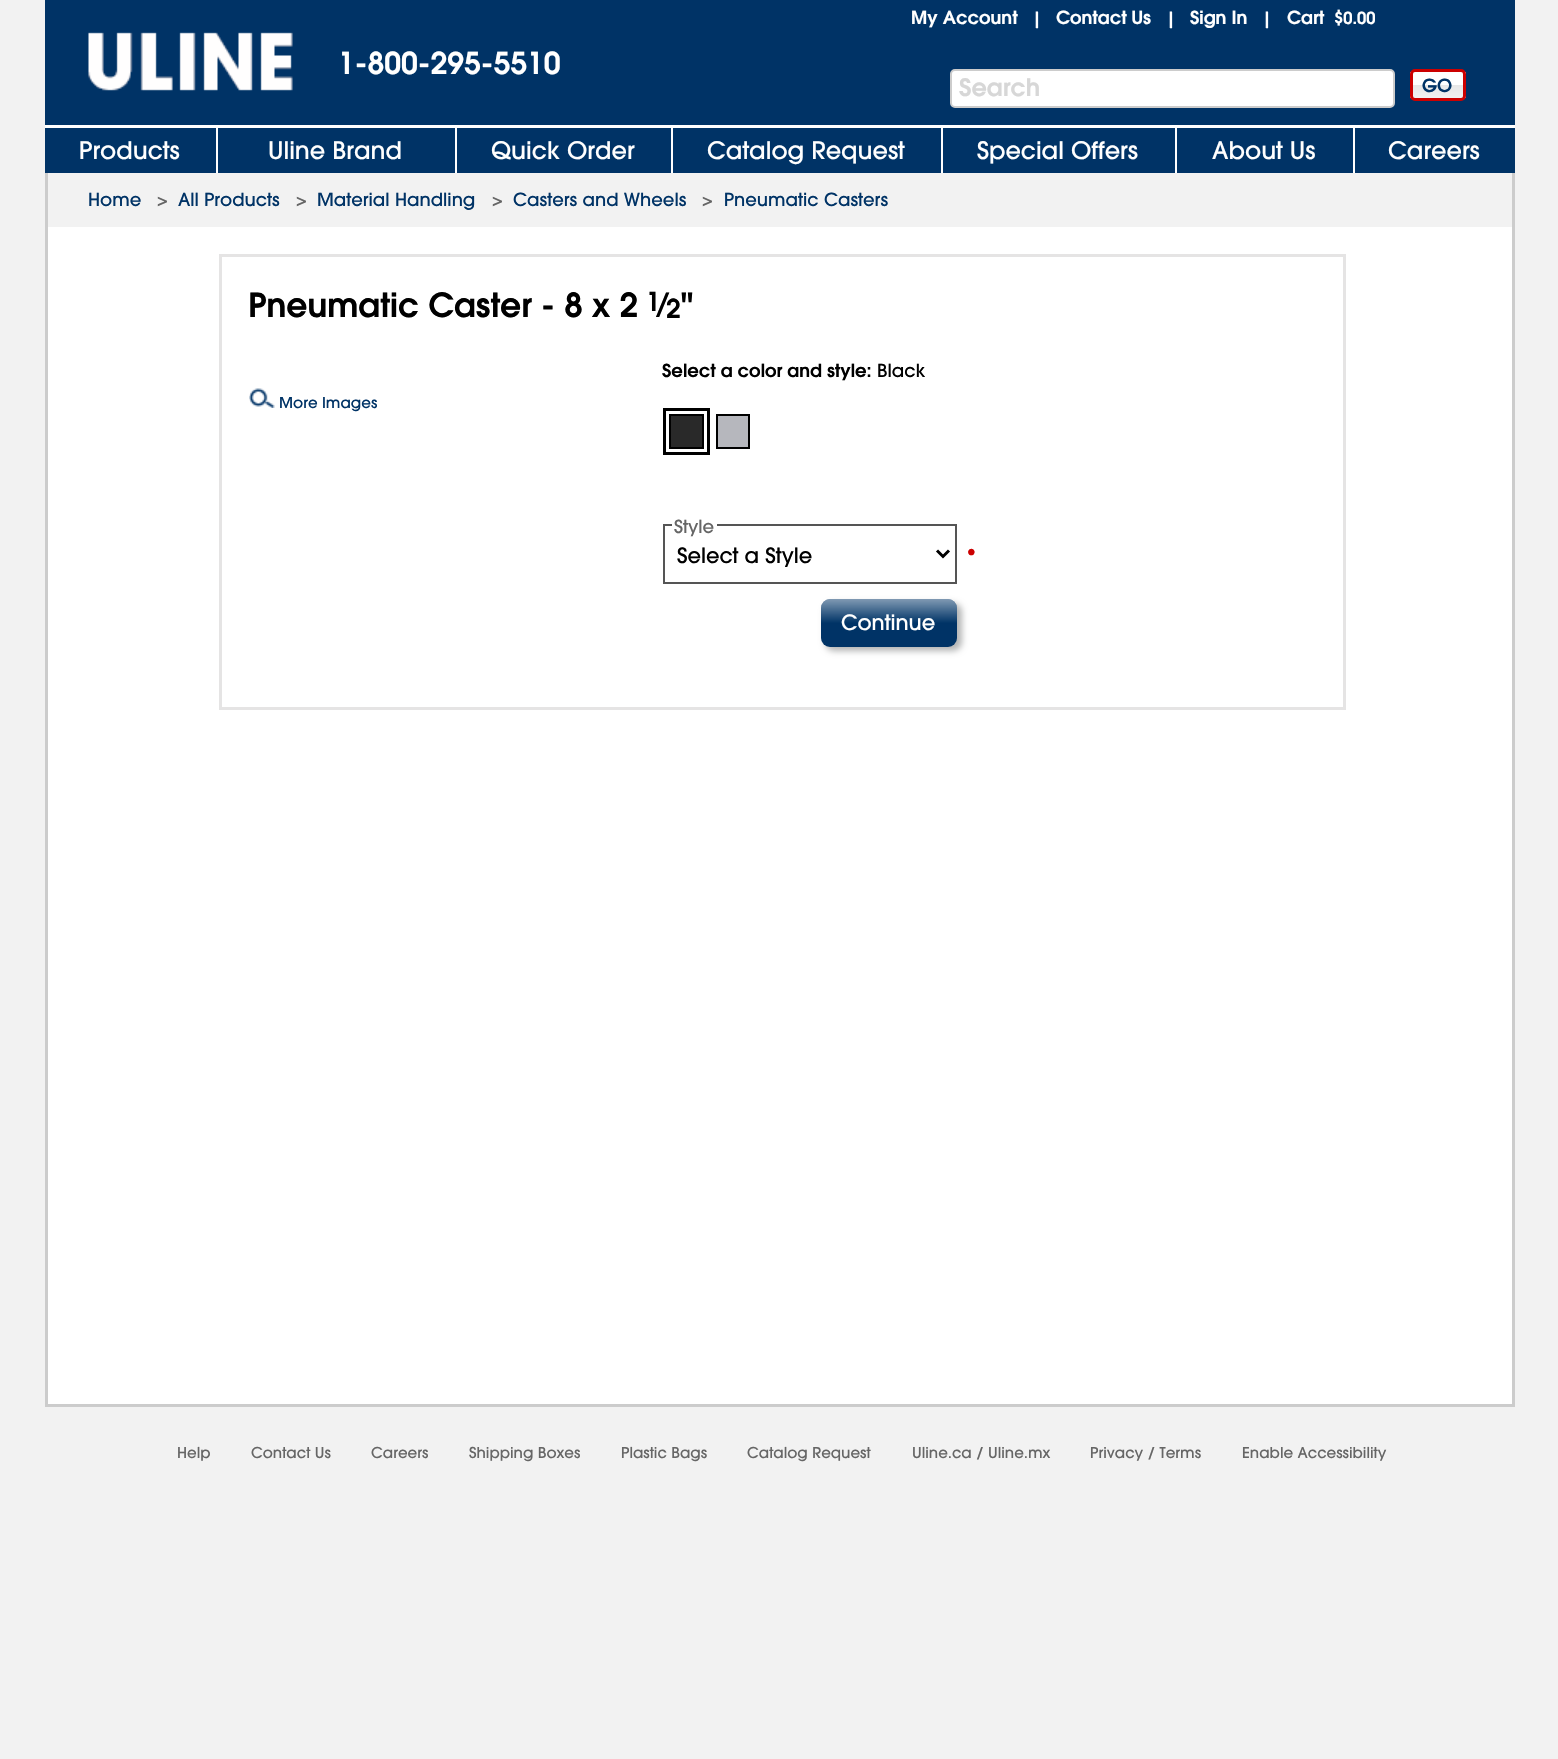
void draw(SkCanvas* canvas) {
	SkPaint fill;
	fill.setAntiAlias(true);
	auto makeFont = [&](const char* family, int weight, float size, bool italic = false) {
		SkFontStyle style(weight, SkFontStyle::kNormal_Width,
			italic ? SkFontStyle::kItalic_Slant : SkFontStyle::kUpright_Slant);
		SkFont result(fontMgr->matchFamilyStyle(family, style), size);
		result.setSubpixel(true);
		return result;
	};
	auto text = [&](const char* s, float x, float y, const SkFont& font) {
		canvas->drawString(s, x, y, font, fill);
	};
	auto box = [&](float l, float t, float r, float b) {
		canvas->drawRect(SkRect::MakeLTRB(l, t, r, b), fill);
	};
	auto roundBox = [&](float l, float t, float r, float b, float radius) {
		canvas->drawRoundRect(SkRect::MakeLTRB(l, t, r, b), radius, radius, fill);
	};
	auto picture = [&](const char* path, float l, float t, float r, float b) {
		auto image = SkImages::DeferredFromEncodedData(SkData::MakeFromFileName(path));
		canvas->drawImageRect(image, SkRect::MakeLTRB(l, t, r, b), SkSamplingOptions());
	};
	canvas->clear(0xFFF2F2F2);
	fill.setColor(0xFFFFFFFF);
	box(48, 227, 1512, 1404);
	fill.setColor(0xFF003366);
	box(45, 0, 1515, 173);
	picture("image0.png", 88, 32, 293, 91);
	fill.setColor(0xFFFFFFFF);
	canvas->drawRoundRect(SkRect::MakeLTRB(951, 70, 1394, 107), 4, 4, fill);
	fill.setStyle(SkPaint::kStroke_Style);
	fill.setStrokeWidth(2);
	fill.setColor(0xFFCCCCCC);
	canvas->drawRoundRect(SkRect::MakeLTRB(951, 70, 1394, 107), 4, 4, fill);
	canvas->save();
	canvas->clipPath(SkPathBuilder().moveTo(1415, 69).lineTo(1461, 69).cubicTo(1464, 69, 1466, 71, 1466, 74).lineTo(1466, 96).cubicTo(1466, 99, 1464, 101, 1461, 101).lineTo(1415, 101).cubicTo(1412, 101, 1410, 99, 1410, 96).lineTo(1410, 74).cubicTo(1410, 71, 1412, 69, 1415, 69).close().detach(), true);
	fill.setStyle(SkPaint::kFill_Style);
	{
		const SkColor colors[] = {0xFFFFFFFF, 0xFFE7E7E7, 0xFFF1F1F1};
		const float stops[] = {0.5f, 0.5f, 1};
		const SkPoint ends[] = {{1438, 72}, {1438, 98}};
		fill.setShader(SkGradientShader::MakeLinear(ends, colors, stops, 3, SkTileMode::kClamp));
		fill.setAlpha(255);
	}
	box(1410, 72, 1466, 98);
	canvas->restore();
	fill.setStyle(SkPaint::kStroke_Style);
	fill.setStrokeWidth(3);
	fill.setShader(nullptr);
	fill.setColor(0xFFCC0000);
	canvas->drawRoundRect(SkRect::MakeLTRB(1411.5f, 70.5f, 1464.5f, 99.5f), 3.5f, 3.5f, fill);
	fill.setStyle(SkPaint::kFill_Style);
	fill.setColor(0xFFFFFFFF);
	box(45, 125, 1515, 128);
	box(216, 128, 218, 173);
	box(455, 128, 457, 173);
	box(671, 128, 673, 173);
	box(941, 128, 943, 173);
	box(1175, 128, 1177, 173);
	box(1353, 128, 1355, 173);
	fill.setColor(0xFFCCCCCC);
	box(1512, 173, 1515, 1407);
	box(45, 1404, 1515, 1407);
	box(45, 173, 48, 1407);
	fill.setStyle(SkPaint::kStroke_Style);
	fill.setColor(0xFFE5E4E4);
	canvas->drawRect(SkRect::MakeLTRB(220.5f, 255.5f, 1344.5f, 708.5f), fill);
	picture("image1.png", 249, 388, 275, 408);
	fill.setColor(0xFF000000);
	canvas->drawRect(SkRect::MakeLTRB(664.5f, 409.5f, 708.5f, 453.5f), fill);
	fill.setStyle(SkPaint::kFill_Style);
	fill.setColor(0xFF292929);
	canvas->drawRect(SkRect::MakeLTRB(670, 415, 703, 448), fill);
	fill.setStyle(SkPaint::kStroke_Style);
	fill.setStrokeWidth(2);
	fill.setColor(0xFF000000);
	canvas->drawRect(SkRect::MakeLTRB(670, 415, 703, 448), fill);
	fill.setStyle(SkPaint::kFill_Style);
	fill.setColor(0xFFB6B7BD);
	canvas->drawRect(SkRect::MakeLTRB(717, 415, 749, 448), fill);
	fill.setStyle(SkPaint::kStroke_Style);
	fill.setColor(0xFF000000);
	canvas->drawRect(SkRect::MakeLTRB(717, 415, 749, 448), fill);
	fill.setColor(0xFF555555);
	canvas->drawRect(SkRect::MakeLTRB(664, 525, 956, 583), fill);
	fill.setStyle(SkPaint::kFill_Style);
	fill.setColor(0xFFFFFFFF);
	box(672, 524, 717, 526);
	fill.setStyle(SkPaint::kStroke_Style);
	fill.setStrokeWidth(3);
	fill.setColor(0xFF000000);
	canvas->drawPath(SkPathBuilder().moveTo(937, 550.5f).lineTo(943, 556.5f).lineTo(949, 550.5f).detach(), fill);
	fill.setStyle(SkPaint::kFill_Style);
	fill.setColor(0xFFB4B5B5);
	fill.setMaskFilter(SkMaskFilter::MakeBlur(kNormal_SkBlurStyle, 3));
	canvas->drawRoundRect(SkRect::MakeLTRB(825, 603, 962, 651), 9, 9, fill);
	fill.setMaskFilter(nullptr);
	fill.setColor(0xFF003366);
	roundBox(821, 599, 957, 647, 9);
	{
		const SkColor colors[] = {0x80FFFFFF, 0x00FFFFFF};
		const float stops[] = {0, 0.5f};
		const SkPoint ends[] = {{889, 599}, {889, 647}};
		fill.setShader(SkGradientShader::MakeLinear(ends, colors, stops, 2, SkTileMode::kClamp));
		fill.setAlpha(255);
	}
	roundBox(821, 599, 957, 647, 9);
	auto font1 = makeFont("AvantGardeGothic", 600, 18);
	fill.setShader(nullptr);
	fill.setColor(0xFFFFFFFF);
	text("My Account", 911, 24, font1);
	auto font2 = makeFont("AvantGardeGothic", 600, 16.5f);
	text("|", 1032, 24, font2);
	text("Contact Us", 1056, 24, font1);
	text("|", 1166, 24, font2);
	text("Sign In", 1190, 24, font1);
	text("|", 1262, 24, font2);
	text("Cart", 1287, 24, font1);
	text("$0.00", 1334, 24, font2);
	auto font3 = makeFont("AvantGardeGothic", 600, 30);
	text("1-800-295-5510", 338, 74, font3);
	auto font4 = makeFont("AvantGardeGothic", 600, 24);
	fill.setColor(0xFFD7D7D7);
	text("Search", 959, 96, font4);
	fill.setColor(0xFF003366);
	text("GO", 1422, 92, font1);
	auto font5 = makeFont("AvantGardeGothic", 500, 24);
	fill.setColor(0xFFFFFFFF);
	text("Products", 79, 159, font5);
	text("Uline Brand", 268, 159, font5);
	text("Quick Order", 491, 159, font5);
	text("Catalog Request", 707, 159, font5);
	text("Special Offers", 977, 159, font5);
	text("About Us", 1212, 159, font5);
	text("Careers", 1388, 159, font5);
	auto font6 = makeFont("AvantGardeGothic", 500, 18);
	fill.setColor(0xFF003366);
	text("Home", 88, 206, font6);
	fill.setColor(0xFF666666);
	text(">", 157, 206, font6);
	fill.setColor(0xFF003366);
	text("All Products", 178, 206, font6);
	fill.setColor(0xFF666666);
	text(">", 296, 206, font6);
	fill.setColor(0xFF003366);
	text("Material Handling", 317, 206, font6);
	fill.setColor(0xFF666666);
	text(">", 492, 206, font6);
	fill.setColor(0xFF003366);
	text("Casters and Wheels", 513, 206, font6);
	fill.setColor(0xFF666666);
	text(">", 702, 206, font6);
	fill.setColor(0xFF003366);
	text("Pneumatic Casters", 724, 206, font6);
	auto font7 = makeFont("AvantGardeGothic", 600, 33);
	fill.setColor(0xFF000000);
	text("Pneumatic Caster - 8 x 2", 248, 317, font7);
	auto font8 = makeFont("AvantGardeGothic", 600, 26);
	text("1", 646, 311, font8);
	text("⁄", 660, 317, font7);
	text("2", 666, 318, font8);
	text("\"", 681, 317, font7);
	auto font9 = makeFont("AvantGardeGothic", 500, 15);
	fill.setColor(0xFF003366);
	text("More Images", 279, 408, font9);
	fill.setColor(0xFF000000);
	text("Select a color and style:", 662, 377, font1);
	text("Black", 877, 377, font6);
	fill.setColor(0xFF666666);
	text("Style", 674, 533, font6);
	auto font10 = makeFont("AvantGardeGothic", 500, 21);
	fill.setColor(0xFF000000);
	text("Select a Style", 677, 563, font10);
	fill.setColor(0xFFCC0000);
	text("•", 965, 560, font10);
	fill.setColor(0xFFFFFFFF);
	text("Continue", 841, 630, font10);
	fill.setColor(0xFF666666);
	text("Help", 177, 1458, font9);
	text("Contact Us", 251, 1458, font9);
	text("Careers", 371, 1458, font9);
	text("Shipping Boxes", 469, 1458, font9);
	text("Plastic Bags", 621, 1458, font9);
	text("Catalog Request", 747, 1458, font9);
	text("Uline.ca / Uline.mx", 912, 1458, font9);
	text("Privacy / Terms", 1090, 1458, font9);
	text("Enable Accessibility", 1242, 1458, font9);
}
